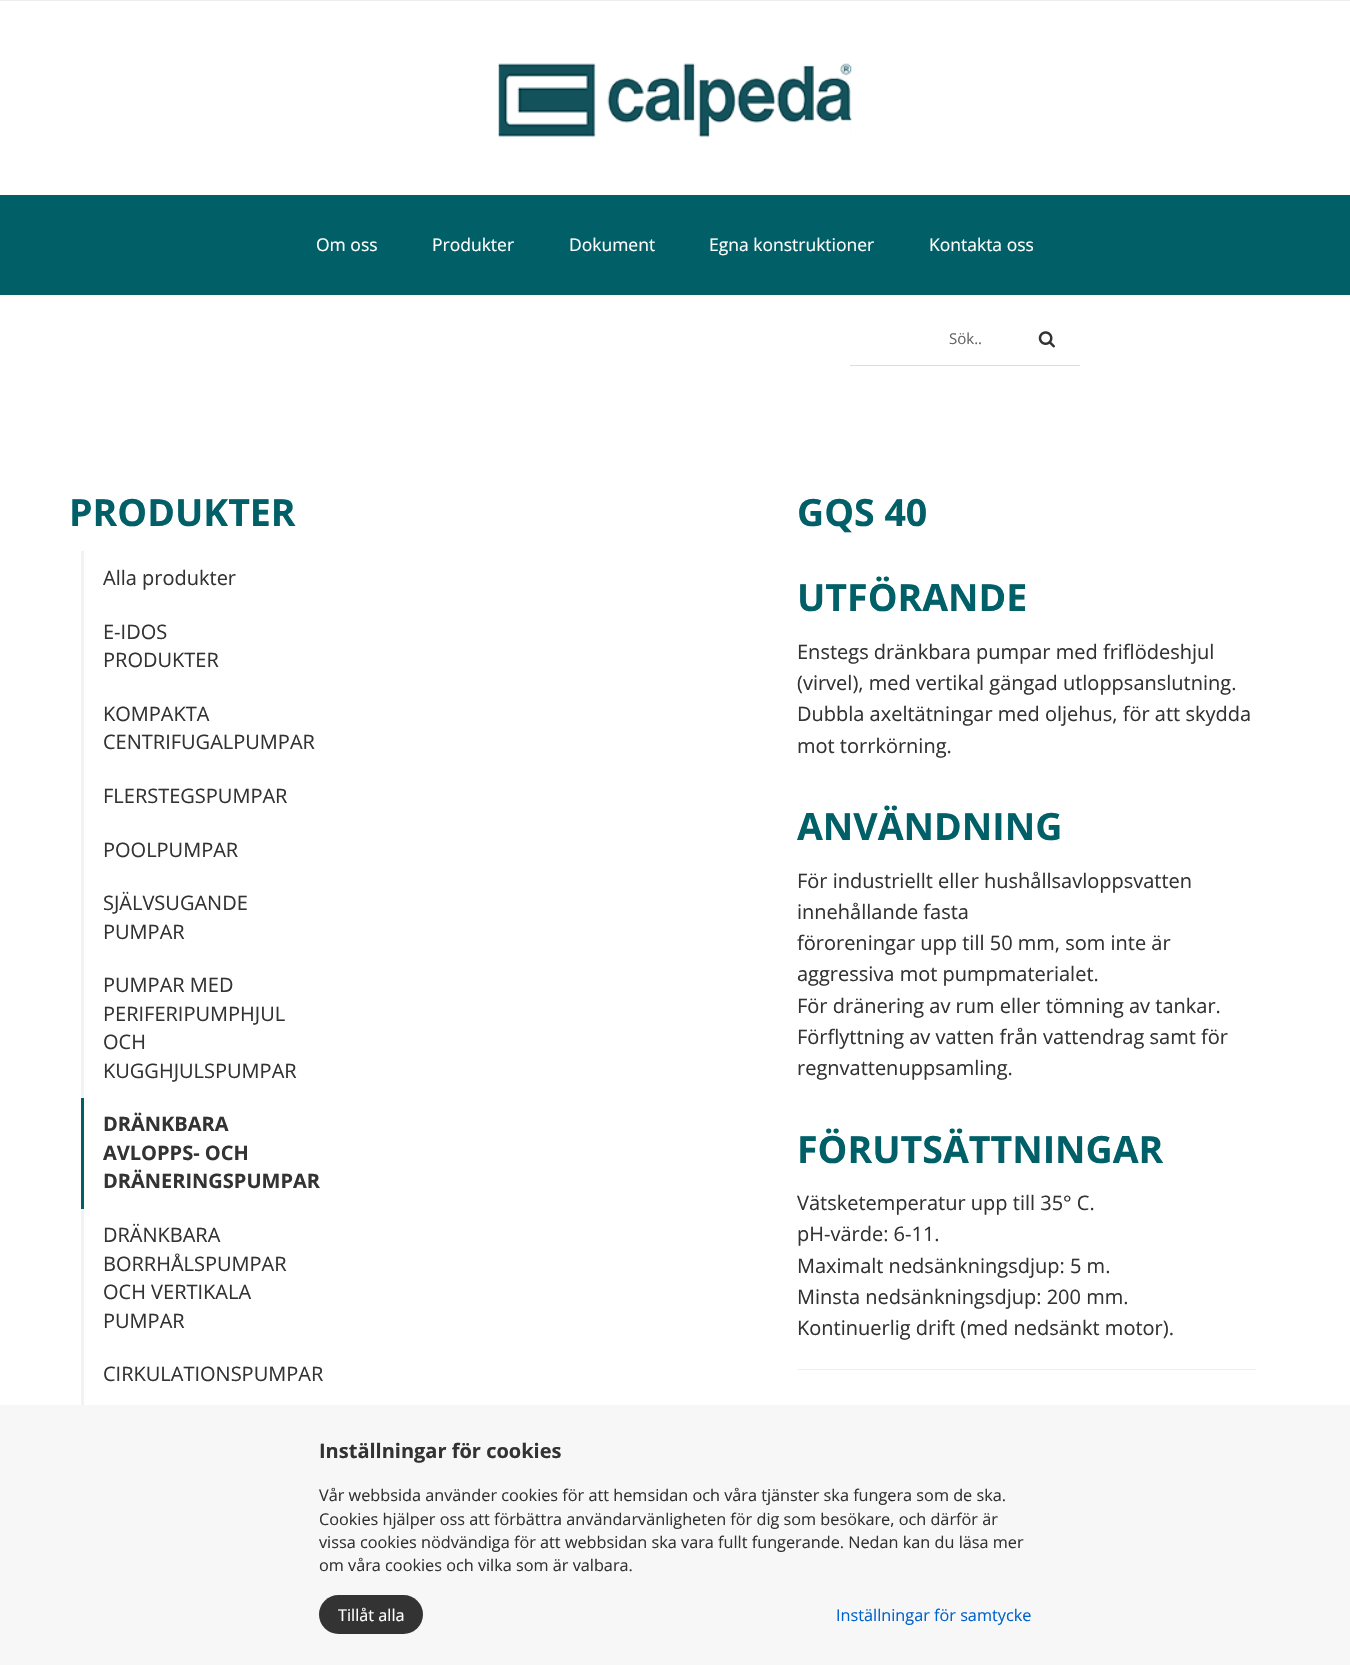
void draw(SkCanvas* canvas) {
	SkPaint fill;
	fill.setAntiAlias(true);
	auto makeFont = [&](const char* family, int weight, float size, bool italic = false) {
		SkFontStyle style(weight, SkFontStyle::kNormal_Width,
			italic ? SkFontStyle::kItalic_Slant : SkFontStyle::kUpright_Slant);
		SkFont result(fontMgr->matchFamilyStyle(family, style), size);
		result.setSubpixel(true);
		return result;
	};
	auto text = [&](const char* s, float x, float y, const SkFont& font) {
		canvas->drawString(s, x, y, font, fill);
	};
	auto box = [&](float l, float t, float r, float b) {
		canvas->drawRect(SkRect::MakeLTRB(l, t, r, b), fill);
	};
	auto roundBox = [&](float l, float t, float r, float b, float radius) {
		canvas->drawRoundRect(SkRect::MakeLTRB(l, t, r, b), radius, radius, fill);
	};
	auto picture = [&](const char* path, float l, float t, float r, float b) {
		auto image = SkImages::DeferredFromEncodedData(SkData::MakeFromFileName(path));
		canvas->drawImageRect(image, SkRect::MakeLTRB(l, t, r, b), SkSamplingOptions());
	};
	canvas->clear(0xFFFFFFFF);
	fill.setColor(0xFFEEEEEE);
	box(0, 0, 1350, 1);
	picture("image0.png", 498, 63, 852, 138);
	fill.setColor(0xFF005F67);
	box(0, 195, 1350, 295);
	fill.setColor(0xFFDDDDDD);
	box(850, 365, 1080, 366);
	picture("image1.png", 1038, 331, 1055, 348);
	fill.setColor(0xFFF2F2F2);
	box(81, 551, 84, 1098);
	fill.setColor(0xFF005F67);
	box(81, 1098, 84, 1209);
	fill.setColor(0xFFF2F2F2);
	box(81, 1209, 84, 1405);
	fill.setColor(0xFFEEEEEE);
	box(798, 1369, 1256, 1370);
	fill.setColor(0xFFF7F7F7);
	box(0, 1405, 1350, 1665);
	fill.setColor(0xFF333333);
	roundBox(319, 1595, 423, 1634, 19.5f);
	auto font1 = makeFont("Open Sans", 400, 17.5f);
	fill.setColor(0xFFFFFFFF);
	text("Om oss", 316, 251, font1);
	text("Produkter", 432, 251, font1);
	text("Dokument", 569, 251, font1);
	text("Egna konstruktioner", 709, 251, font1);
	text("Kontakta oss", 929, 251, font1);
	auto font2 = makeFont("Open Sans", 400, 15);
	fill.setColor(0xFF666666);
	text("Sök..", 949, 344, font2);
	auto font3 = makeFont("Open Sans", 700, 37.5f);
	fill.setColor(0xFF005F67);
	text("PRODUKTER", 69, 526, font3);
	auto font4 = makeFont("Open Sans", 400, 20);
	fill.setColor(0xFF333333);
	text("Alla produkter", 103, 585, font4);
	text("E-IDOS", 103, 639, font4);
	text("PRODUKTER", 103, 667, font4);
	text("KOMPAKTA", 103, 721, font4);
	text("CENTRIFUGALPUMPAR", 103, 749, font4);
	text("FLERSTEGSPUMPAR", 103, 803, font4);
	text("POOLPUMPAR", 103, 857, font4);
	text("SJÄLVSUGANDE", 103, 910, font4);
	text("PUMPAR", 103, 939, font4);
	text("PUMPAR MED", 103, 992, font4);
	text("PERIFERIPUMPHJUL", 103, 1021, font4);
	text("OCH", 103, 1049, font4);
	text("KUGGHJULSPUMPAR", 103, 1078, font4);
	auto font5 = makeFont("Open Sans", 700, 20);
	text("DRÄNKBARA", 103, 1131, font5);
	text("AVLOPPS- OCH", 103, 1160, font5);
	text("DRÄNERINGSPUMPAR", 103, 1188, font5);
	text("DRÄNKBARA", 103, 1242, font4);
	text("BORRHÅLSPUMPAR", 103, 1271, font4);
	text("OCH VERTIKALA", 103, 1299, font4);
	text("PUMPAR", 103, 1328, font4);
	text("CIRKULATIONSPUMPAR", 103, 1381, font4);
	fill.setColor(0xFF005F67);
	text("GQS 40", 797, 526, font3);
	text("UTFÖRANDE", 797, 611, font3);
	fill.setColor(0xFF333333);
	text("Enstegs dränkbara pumpar med friflödeshjul", 797, 659, font4);
	text("(virvel), med vertikal gängad utloppsanslutning.", 797, 690, font4);
	text("Dubbla axeltätningar med oljehus, för att skydda", 797, 721, font4);
	text("mot torrkörning.", 797, 753, font4);
	fill.setColor(0xFF005F67);
	text("ANVÄNDNING", 797, 840, font3);
	fill.setColor(0xFF333333);
	text("För industriellt eller hushållsavloppsvatten", 797, 888, font4);
	text("innehållande fasta", 797, 919, font4);
	text("föroreningar upp till 50 mm, som inte är", 797, 950, font4);
	text("aggressiva mot pumpmaterialet.", 797, 981, font4);
	text("För dränering av rum eller tömning av tankar.", 797, 1013, font4);
	text("Förflyttning av vatten från vattendrag samt för", 797, 1044, font4);
	text("regnvattenuppsamling.", 797, 1075, font4);
	fill.setColor(0xFF005F67);
	text("FÖRUTSÄTTNINGAR", 797, 1163, font3);
	fill.setColor(0xFF333333);
	text("Vätsketemperatur upp till 35° C.", 797, 1210, font4);
	text("pH-värde: 6-11.", 797, 1241, font4);
	text("Maximalt nedsänkningsdjup: 5 m.", 797, 1273, font4);
	text("Minsta nedsänkningsdjup: 200 mm.", 797, 1304, font4);
	text("Kontinuerlig drift (med nedsänkt motor).", 797, 1335, font4);
	text("Inställningar för cookies", 319, 1458, font5);
	auto font6 = makeFont("Open Sans", 400, 16.25f);
	text("Vår webbsida använder cookies för att hemsidan och våra tjänster ska fungera som de ska.", 319, 1501, font6);
	text("Cookies hjälper oss att förbättra användarvänligheten för dig som besökare, och därför är", 319, 1525, font6);
	text("vissa cookies nödvändiga för att webbsidan ska vara fullt fungerande. Nedan kan du läsa mer", 319, 1548, font6);
	text("om våra cookies och vilka som är valbara.", 319, 1571, font6);
	fill.setColor(0xFFFFFFFF);
	text("Tillåt alla", 338, 1621, font6);
	fill.setColor(0xFF0062CC);
	text("Inställningar för samtycke", 836, 1621, font6);
}
